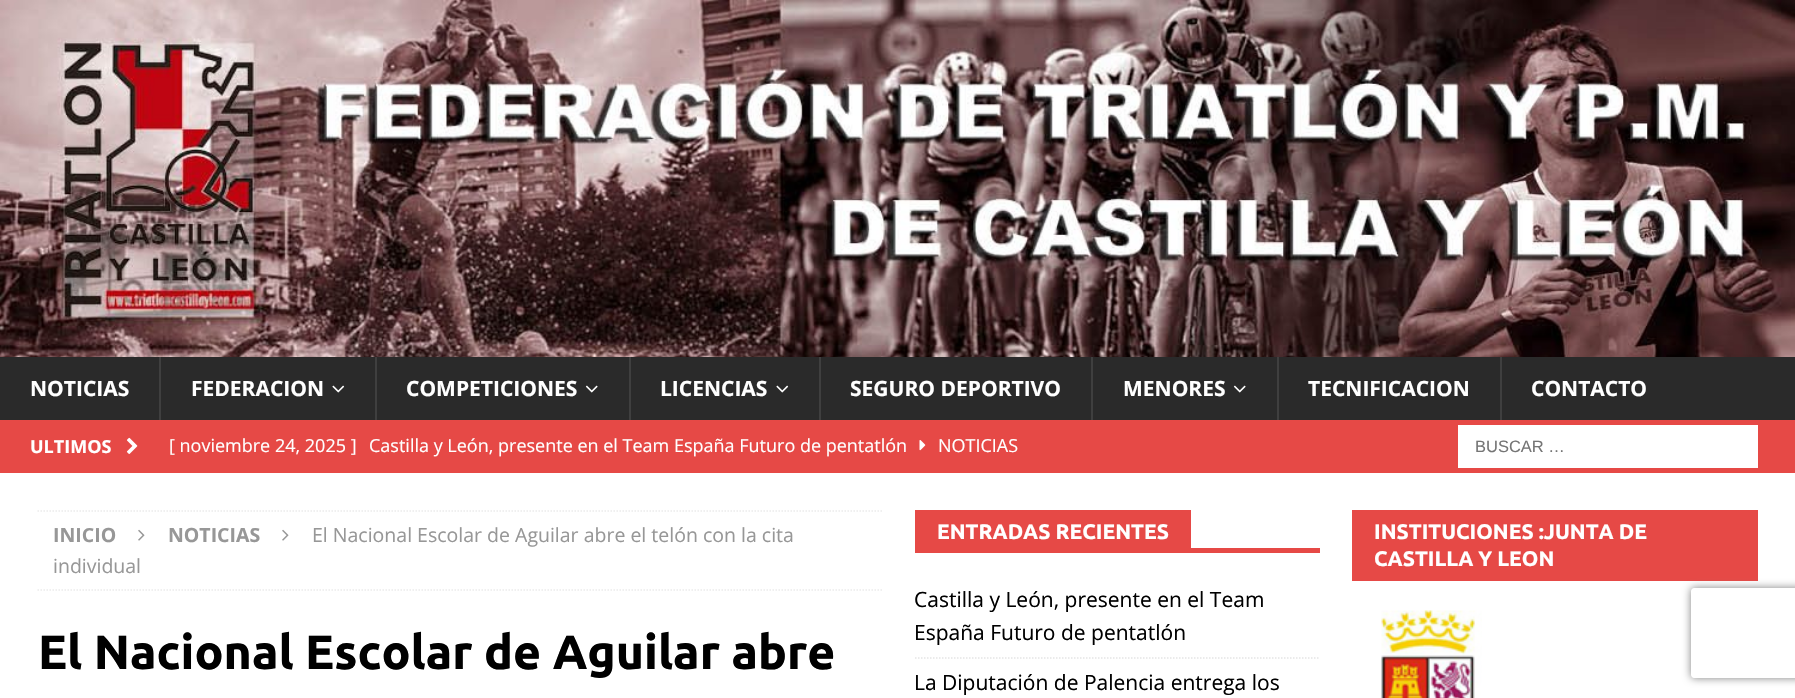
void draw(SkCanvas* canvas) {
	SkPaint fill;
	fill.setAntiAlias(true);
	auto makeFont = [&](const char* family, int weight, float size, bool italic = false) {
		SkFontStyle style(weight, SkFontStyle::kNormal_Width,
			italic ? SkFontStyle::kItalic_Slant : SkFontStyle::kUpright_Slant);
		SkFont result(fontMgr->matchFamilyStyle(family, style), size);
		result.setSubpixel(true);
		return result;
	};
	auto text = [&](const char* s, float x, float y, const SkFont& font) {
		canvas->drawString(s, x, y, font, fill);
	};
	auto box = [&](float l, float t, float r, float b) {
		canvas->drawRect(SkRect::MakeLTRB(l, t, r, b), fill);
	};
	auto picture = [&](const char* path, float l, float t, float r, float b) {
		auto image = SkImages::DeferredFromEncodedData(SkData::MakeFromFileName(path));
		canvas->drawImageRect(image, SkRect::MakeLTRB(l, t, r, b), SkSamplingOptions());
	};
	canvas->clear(0xFF2A2A2A);
	picture("image0.png", 0, 0, 1795, 357);
	fill.setColor(0xFF3F3F3F);
	box(159, 357, 161, 420);
	picture("image1.png", 332, 385, 345, 393);
	box(375, 357, 377, 420);
	picture("image2.png", 585, 385, 598, 393);
	box(629, 357, 631, 420);
	picture("image1.png", 776, 385, 789, 393);
	box(819, 357, 821, 420);
	box(1091, 357, 1093, 420);
	picture("image2.png", 1233, 385, 1246, 393);
	box(1277, 357, 1279, 420);
	box(1500, 357, 1502, 420);
	fill.setColor(0xFFE64946);
	box(0, 420, 1795, 473);
	picture("image3.png", 126, 437, 138, 454);
	picture("image4.png", 919, 440, 926, 451);
	fill.setColor(0xFFFFFFFF);
	box(1458, 425, 1758, 468);
	box(0, 473, 1795, 698);
	fill.setStyle(SkPaint::kStroke_Style);
	fill.setStrokeWidth(1.5f);
	fill.setColor(0xFFEBEBEB);
	fill.setPathEffect(SkDashPathEffect::Make({{1.5f, 1.5f}}, 0));
	canvas->drawPath(SkPathBuilder().moveTo(37.5f, 511).lineTo(882, 511).detach(), fill);
	fill.setPathEffect(nullptr);
	fill.setPathEffect(SkDashPathEffect::Make({{1.5f, 1.5f}}, 0));
	canvas->drawPath(SkPathBuilder().moveTo(37.5f, 590).lineTo(882, 590).detach(), fill);
	fill.setPathEffect(nullptr);
	picture("image5.png", 138, 529, 145, 541);
	picture("image5.png", 282, 529, 289, 541);
	fill.setStyle(SkPaint::kFill_Style);
	fill.setColor(0xFFE64946);
	box(915, 548, 1320, 553);
	box(915, 510, 1191, 548);
	fill.setStyle(SkPaint::kStroke_Style);
	fill.setColor(0xFFE5E5E5);
	fill.setPathEffect(SkDashPathEffect::Make({{1.5f, 1.5f}}, 0));
	canvas->drawPath(SkPathBuilder().moveTo(915, 658).lineTo(1320, 658).detach(), fill);
	fill.setPathEffect(nullptr);
	fill.setStyle(SkPaint::kFill_Style);
	fill.setColor(0xFFE64946);
	box(1352, 510, 1758, 581);
	picture("image6.png", 1381, 610, 1482, 698);
	canvas->save();
	canvas->clipPath(SkPathBuilder(SkPathFillType::kEvenOdd).moveTo(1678, 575).lineTo(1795, 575).lineTo(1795, 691).lineTo(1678, 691).close().moveTo(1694, 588).lineTo(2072, 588).cubicTo(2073.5f, 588, 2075, 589.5f, 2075, 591).lineTo(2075, 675).cubicTo(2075, 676.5f, 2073.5f, 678, 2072, 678).lineTo(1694, 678).cubicTo(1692.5f, 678, 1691, 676.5f, 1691, 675).lineTo(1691, 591).cubicTo(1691, 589.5f, 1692.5f, 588, 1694, 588).close().detach(), true);
	fill.setColor(0xFF808080);
	fill.setMaskFilter(SkMaskFilter::MakeBlur(kNormal_SkBlurStyle, 4));
	canvas->drawRoundRect(SkRect::MakeLTRB(1691, 588, 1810, 678), 3, 3, fill);
	fill.setMaskFilter(nullptr);
	canvas->restore();
	auto font1 = makeFont("Open Sans", 700, 21);
	fill.setColor(0xFFFFFFFF);
	text("NOTICIAS", 30, 396, font1);
	text("FEDERACION", 191, 396, font1);
	text("COMPETICIONES", 406, 396, font1);
	text("LICENCIAS", 660, 396, font1);
	text("SEGURO DEPORTIVO", 850, 396, font1);
	text("MENORES", 1123, 396, font1);
	text("TECNIFICACION", 1308, 396, font1);
	text("CONTACTO", 1531, 396, font1);
	auto font2 = makeFont("Open Sans", 700, 18);
	text("ULTIMOS", 30, 453, font2);
	auto font3 = makeFont("Open Sans", 400, 18);
	text("[ noviembre 24, 2025 ]", 169, 452, font3);
	text("Castilla y León, presente en el Team España Futuro de pentatlón", 369, 452, font3);
	text("NOTICIAS", 938, 452, font3);
	auto font4 = makeFont("Liberation Sans", 400, 16.5f);
	fill.setColor(0xFF757575);
	text("BUSCAR …", 1475, 452, font4);
	auto font5 = makeFont("Open Sans", 700, 19.5f);
	fill.setColor(0xFF979797);
	text("INICIO", 53, 542, font5);
	text("NOTICIAS", 168, 542, font5);
	auto font6 = makeFont("Open Sans", 400, 19.5f);
	text("El Nacional Escolar de Aguilar abre el telón con la cita", 312, 542, font6);
	text("individual", 53, 573, font6);
	auto font7 = makeFont("Ubuntu", 700, 48);
	fill.setColor(0xFF000000);
	text("El Nacional Escolar de Aguilar abre", 38, 669, font7);
	auto font8 = makeFont("Ubuntu", 700, 21);
	fill.setColor(0xFFFFFFFF);
	text("ENTRADAS RECIENTES", 937, 539, font8);
	auto font9 = makeFont("Open Sans", 400, 21);
	fill.setColor(0xFF000000);
	text("Castilla y León, presente en el Team", 914, 607, font9);
	text("España Futuro de pentatlón", 914, 640, font9);
	text("La Diputación de Palencia entrega los", 914, 690, font9);
	fill.setColor(0xFFFFFFFF);
	text("INSTITUCIONES :JUNTA DE", 1374, 539, font8);
	text("CASTILLA Y LEON", 1374, 566, font8);
}
